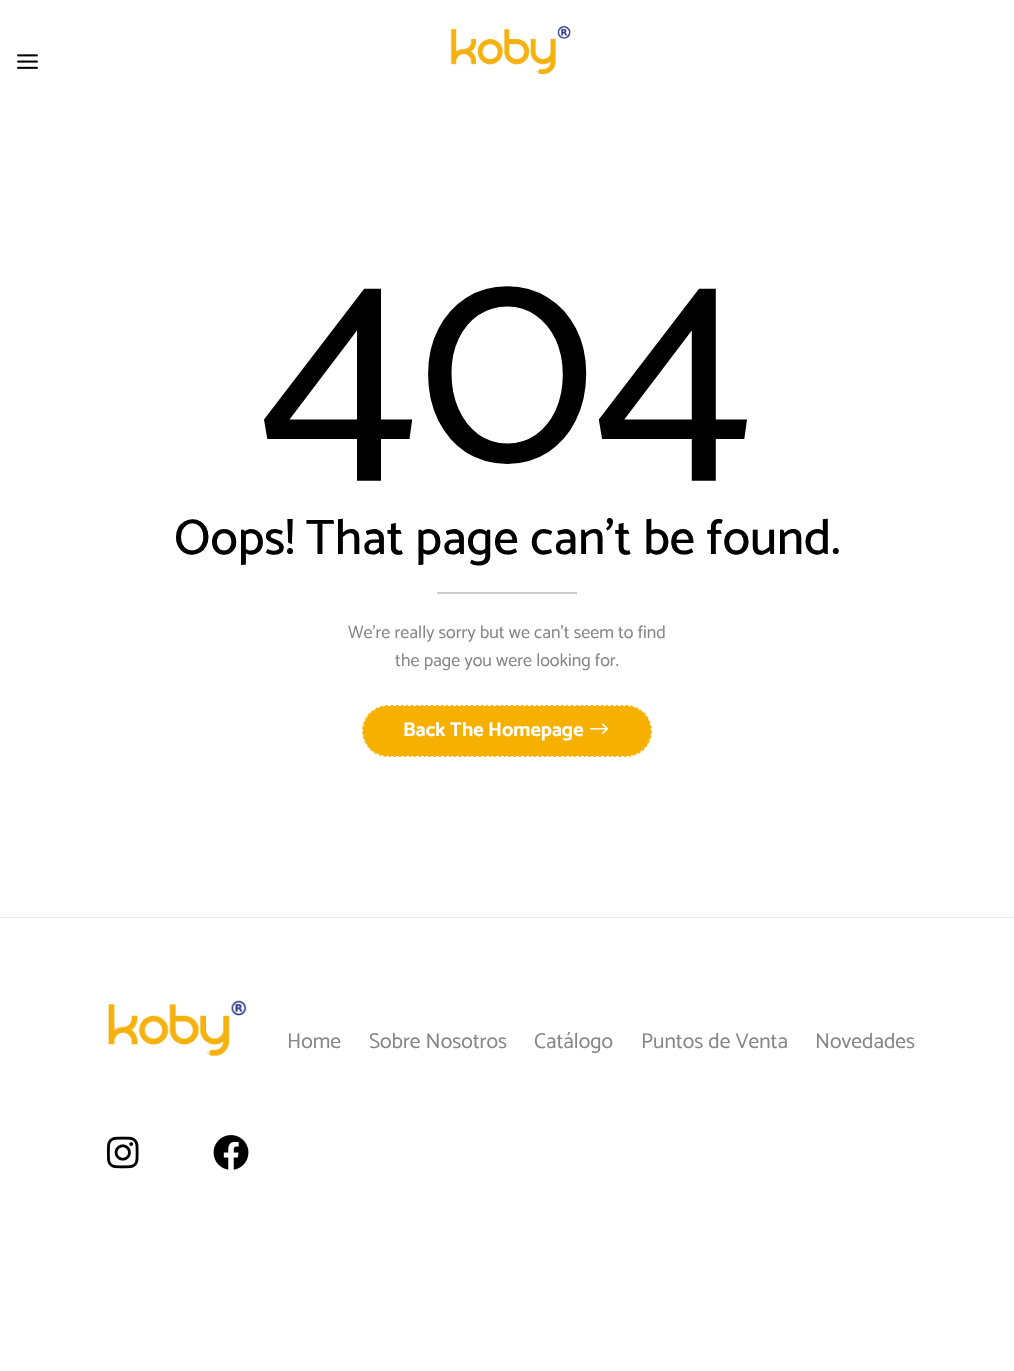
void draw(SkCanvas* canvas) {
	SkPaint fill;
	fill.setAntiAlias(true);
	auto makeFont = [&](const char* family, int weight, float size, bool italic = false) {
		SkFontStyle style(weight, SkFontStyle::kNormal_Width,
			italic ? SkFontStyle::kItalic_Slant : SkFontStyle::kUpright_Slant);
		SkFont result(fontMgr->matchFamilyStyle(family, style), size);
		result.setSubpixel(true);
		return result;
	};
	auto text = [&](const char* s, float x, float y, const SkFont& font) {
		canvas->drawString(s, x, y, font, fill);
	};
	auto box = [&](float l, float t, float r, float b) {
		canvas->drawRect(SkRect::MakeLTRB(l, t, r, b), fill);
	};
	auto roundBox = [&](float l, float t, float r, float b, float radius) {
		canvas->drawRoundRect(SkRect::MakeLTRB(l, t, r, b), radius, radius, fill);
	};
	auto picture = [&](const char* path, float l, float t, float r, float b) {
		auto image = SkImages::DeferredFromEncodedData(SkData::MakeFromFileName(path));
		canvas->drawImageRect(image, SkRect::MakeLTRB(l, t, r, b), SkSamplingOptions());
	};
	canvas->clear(0xFFFFFFFF);
	picture("image0.png", 17, 54, 38, 69);
	picture("image1.png", 450, 25, 571, 75);
	fill.setColor(0xFFCCCCCC);
	box(437, 592, 577, 594);
	fill.setColor(0xFFF6B100);
	roundBox(362, 705, 652, 757, 26);
	fill.setStyle(SkPaint::kStroke_Style);
	fill.setStrokeWidth(1);
	fill.setColor(0xFFFFFFFF);
	fill.setPathEffect(SkDashPathEffect::Make({{3, 2}}, 0));
	canvas->drawPath(SkPathBuilder().moveTo(388, 705.5f).lineTo(626, 705.5f).cubicTo(640, 705.5f, 651.5f, 717, 651.5f, 731).cubicTo(651.5f, 745, 640, 756.5f, 626, 756.5f).lineTo(388, 756.5f).cubicTo(374, 756.5f, 362.5f, 745, 362.5f, 731).cubicTo(362.5f, 717, 374, 705.5f, 388, 705.5f).close().detach(), fill);
	fill.setPathEffect(nullptr);
	picture("image2.png", 590, 723, 608, 734);
	fill.setStyle(SkPaint::kFill_Style);
	fill.setColor(0xFFE9E9E9);
	box(0, 917, 1014, 918);
	picture("image3.png", 108, 1000, 247, 1056);
	picture("image4.png", 107, 1136, 139, 1169);
	picture("image5.png", 213, 1135, 249, 1170);
	auto font1 = makeFont("Catamaran", 400, 300);
	fill.setColor(0xFF000000);
	text("404", 261, 460, font1);
	auto font2 = makeFont("Catamaran", 500, 50);
	text("Oops! That page can't be found.", 174, 554, font2);
	auto font3 = makeFont("Catamaran", 400, 18);
	fill.setColor(0xFF868686);
	text("We're really sorry but we can't seem to find", 348, 638, font3);
	text("the page you were looking for.", 395, 666, font3);
	auto font4 = makeFont("Catamaran", 700, 20);
	fill.setColor(0xFFFFFFFF);
	text("Back The Homepage", 403, 736, font4);
	auto font5 = makeFont("Catamaran", 400, 21.5f);
	fill.setColor(0xFF868686);
	text("Home", 287, 1048, font5);
	text("Sobre Nosotros", 369, 1048, font5);
	text("Catálogo", 534, 1048, font5);
	text("Puntos de Venta", 641, 1048, font5);
	text("Novedades", 815, 1048, font5);
}
